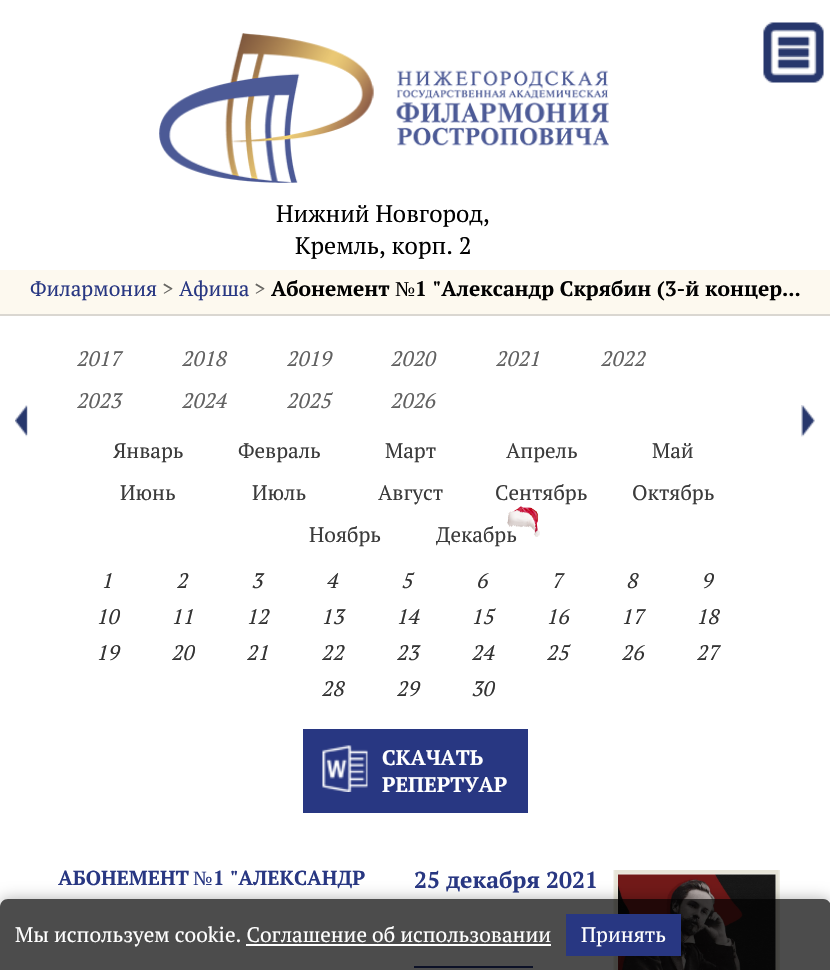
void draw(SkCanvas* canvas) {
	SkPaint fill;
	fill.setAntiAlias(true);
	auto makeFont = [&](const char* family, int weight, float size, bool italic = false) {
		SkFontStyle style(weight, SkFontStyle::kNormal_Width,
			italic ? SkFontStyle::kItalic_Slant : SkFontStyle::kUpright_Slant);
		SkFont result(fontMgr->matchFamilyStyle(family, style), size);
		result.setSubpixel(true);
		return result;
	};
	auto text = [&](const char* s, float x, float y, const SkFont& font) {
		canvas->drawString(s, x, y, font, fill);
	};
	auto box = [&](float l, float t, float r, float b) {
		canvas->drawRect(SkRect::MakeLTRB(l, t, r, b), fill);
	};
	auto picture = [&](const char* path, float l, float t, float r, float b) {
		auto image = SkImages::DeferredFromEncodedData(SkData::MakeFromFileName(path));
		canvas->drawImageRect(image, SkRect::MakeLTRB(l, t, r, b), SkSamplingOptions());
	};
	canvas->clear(0xFFFFFFFF);
	picture("image0.png", 763, 22, 824, 83);
	picture("image1.png", 159, 33, 609, 183);
	fill.setColor(0xFFFDF9EF);
	box(0, 270, 830, 314);
	fill.setColor(0xFFDAD7D1);
	box(0, 314, 830, 316);
	picture("image2.png", 15, 405, 28, 437);
	picture("image4.png", 801, 405, 815, 437);
	fill.setColor(0xFF283782);
	box(303, 729, 528, 813);
	picture("image5.png", 322, 745, 368, 792);
	box(414, 966, 533, 968);
	picture("image6.png", 613, 870, 780, 970);
	picture("image7.png", 618, 874, 776, 970);
	canvas->save();
	canvas->clipPath(SkPathBuilder(SkPathFillType::kEvenOdd).moveTo(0, 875).lineTo(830, 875).lineTo(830, 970).lineTo(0, 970).close().moveTo(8, 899).lineTo(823, 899).cubicTo(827.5f, 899, 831, 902.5f, 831, 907).lineTo(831, 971).lineTo(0, 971).lineTo(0, 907).cubicTo(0, 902.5f, 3.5f, 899, 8, 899).close().detach(), true);
	fill.setColor(0x4D000000);
	fill.setMaskFilter(SkMaskFilter::MakeBlur(kNormal_SkBlurStyle, 7.5f));
	canvas->drawRoundRect(SkRect::MakeLTRB(0, 899, 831, 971), 8, 8, fill);
	fill.setMaskFilter(nullptr);
	canvas->restore();
	fill.setColor(0xB3000000);
	canvas->drawPath(SkPathBuilder().moveTo(8, 899).lineTo(823, 899).cubicTo(827.5f, 899, 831, 902.5f, 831, 907).lineTo(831, 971).lineTo(0, 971).lineTo(0, 907).cubicTo(0, 902.5f, 3.5f, 899, 8, 899).close().detach(), fill);
	fill.setColor(0xFFFFFFFF);
	box(246, 944, 551, 946);
	fill.setColor(0xFF283782);
	box(566, 914, 681, 956);
	auto font1 = makeFont("PT Serif", 400, 24);
	fill.setColor(0xFF010101);
	text("Нижний Новгород,", 276, 222, font1);
	text("Кремль, корп. 2", 295, 254, font1);
	auto font2 = makeFont("PT Serif", 400, 21);
	fill.setColor(0xFF283782);
	text("Филармония", 30, 296, font2);
	fill.setColor(0xFF676662);
	text(">", 162, 296, font2);
	fill.setColor(0xFF283782);
	text("Афиша", 179, 296, font2);
	fill.setColor(0xFF676662);
	text(">", 254, 296, font2);
	auto font3 = makeFont("PT Serif", 700, 21);
	fill.setColor(0xFF010101);
	text("Абонемент", 271, 296, font3);
	auto font4 = makeFont("Liberation Serif", 400, 21);
	text("№", 395, 296, font4);
	text("1 \"Александр Скрябин (3-й концер...", 415, 296, font3);
	auto font5 = makeFont("PT Serif", 400, 21, true);
	fill.setColor(0xFF616161);
	text("2017", 76, 366, font5);
	text("2018", 181, 366, font5);
	text("2019", 286, 366, font5);
	text("2020", 390, 366, font5);
	text("2021", 495, 366, font5);
	text("2022", 600, 366, font5);
	text("2023", 76, 408, font5);
	text("2024", 181, 408, font5);
	text("2025", 286, 408, font5);
	text("2026", 390, 408, font5);
	fill.setColor(0xFF3B3B3B);
	text("Январь", 113, 458, font2);
	text("Февраль", 238, 458, font2);
	text("Март", 385, 458, font2);
	text("Апрель", 506, 458, font2);
	text("Май", 652, 458, font2);
	text("Июнь", 120, 500, font2);
	text("Июль", 252, 500, font2);
	text("Август", 378, 500, font2);
	text("Сентябрь", 495, 500, font2);
	text("Октябрь", 632, 500, font2);
	text("Ноябрь", 309, 542, font2);
	text("Декабрь", 436, 542, font2);
	picture("image3.png", 507, 506, 540, 537);
	fill.setColor(0xFF333333);
	text("1", 101, 588, font5);
	text("2", 176, 588, font5);
	text("3", 251, 588, font5);
	text("4", 326, 588, font5);
	text("5", 401, 588, font5);
	text("6", 476, 588, font5);
	text("7", 551, 588, font5);
	text("8", 626, 588, font5);
	text("9", 701, 588, font5);
	text("10", 96, 624, font5);
	text("11", 171, 624, font5);
	text("12", 246, 624, font5);
	text("13", 321, 624, font5);
	text("14", 396, 624, font5);
	text("15", 471, 624, font5);
	text("16", 546, 624, font5);
	text("17", 621, 624, font5);
	text("18", 696, 624, font5);
	text("19", 96, 660, font5);
	text("20", 171, 660, font5);
	text("21", 246, 660, font5);
	text("22", 321, 660, font5);
	text("23", 396, 660, font5);
	text("24", 471, 660, font5);
	text("25", 546, 660, font5);
	text("26", 621, 660, font5);
	text("27", 696, 660, font5);
	text("28", 321, 696, font5);
	text("29", 396, 696, font5);
	text("30", 471, 696, font5);
	fill.setColor(0xFFFFFFFF);
	text("СКАЧАТЬ", 382, 765, font3);
	text("РЕПЕРТУАР", 382, 792, font3);
	auto font6 = makeFont("PT Serif", 700, 20.25f);
	fill.setColor(0xFF283782);
	text("АБОНЕМЕНТ", 58, 885, font6);
	auto font7 = makeFont("Liberation Serif", 400, 20.25f);
	text("№", 193, 885, font7);
	text("1 \"АЛЕКСАНДР", 213, 885, font6);
	auto font8 = makeFont("PT Serif", 700, 23);
	text("25 декабря 2021", 414, 888, font8);
	fill.setColor(0xFFFFFFFF);
	text("Мы используем cookie. Соглашение об использовании", 15, 942, font2);
	text("Принять", 581, 942, font2);
}
